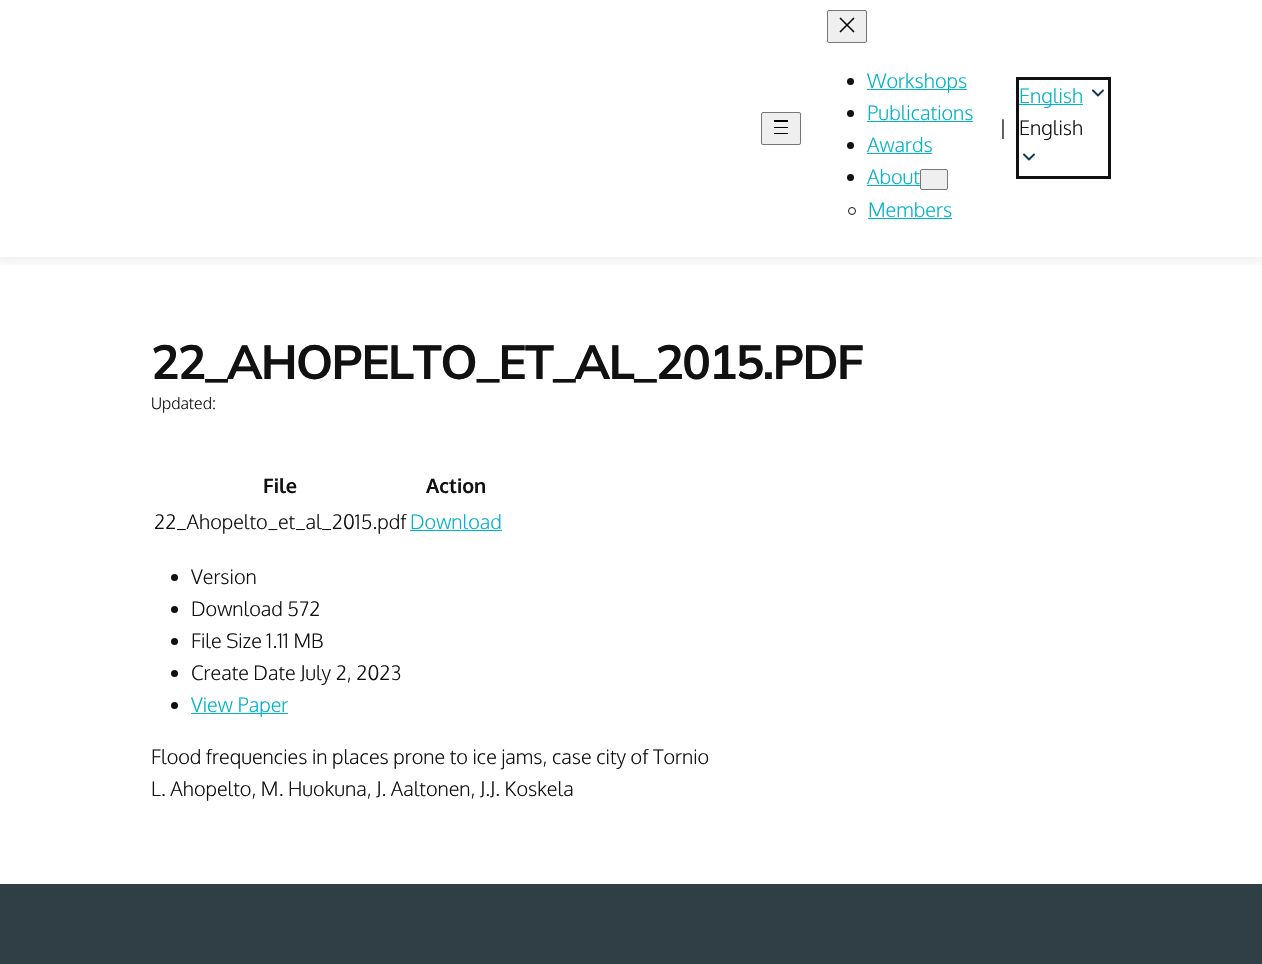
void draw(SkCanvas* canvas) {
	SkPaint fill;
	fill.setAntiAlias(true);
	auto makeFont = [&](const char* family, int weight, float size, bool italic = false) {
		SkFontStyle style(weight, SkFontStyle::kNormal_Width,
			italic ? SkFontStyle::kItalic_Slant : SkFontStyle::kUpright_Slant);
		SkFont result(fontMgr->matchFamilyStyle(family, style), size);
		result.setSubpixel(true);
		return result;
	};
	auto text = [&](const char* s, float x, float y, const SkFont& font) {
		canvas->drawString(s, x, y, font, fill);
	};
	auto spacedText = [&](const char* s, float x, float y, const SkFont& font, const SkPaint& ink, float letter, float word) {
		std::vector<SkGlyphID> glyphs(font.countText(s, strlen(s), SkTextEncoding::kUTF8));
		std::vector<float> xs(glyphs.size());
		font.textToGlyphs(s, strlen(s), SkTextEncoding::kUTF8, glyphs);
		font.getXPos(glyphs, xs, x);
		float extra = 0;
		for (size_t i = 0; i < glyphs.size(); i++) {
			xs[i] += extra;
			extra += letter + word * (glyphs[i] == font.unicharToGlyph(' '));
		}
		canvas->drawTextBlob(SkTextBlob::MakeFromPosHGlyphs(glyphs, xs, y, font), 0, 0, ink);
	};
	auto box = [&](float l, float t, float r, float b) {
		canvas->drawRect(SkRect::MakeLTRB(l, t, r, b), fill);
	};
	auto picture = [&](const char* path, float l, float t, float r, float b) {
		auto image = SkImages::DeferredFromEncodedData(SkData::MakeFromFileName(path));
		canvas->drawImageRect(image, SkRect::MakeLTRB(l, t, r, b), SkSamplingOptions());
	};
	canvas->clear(0xFFFFFFFF);
	canvas->save();
	canvas->clipRect(SkRect::MakeLTRB(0, 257, 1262, 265));
	fill.setColor(0x14111111);
	fill.setMaskFilter(SkMaskFilter::MakeBlur(kNormal_SkBlurStyle, 6));
	canvas->drawRect(SkRect::MakeLTRB(-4, -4, 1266, 261), fill);
	fill.setMaskFilter(nullptr);
	canvas->restore();
	fill.setColor(0xFFEFEFEF);
	canvas->drawRoundRect(SkRect::MakeLTRB(761.5f, 112.5f, 800.5f, 144.5f), 1.5f, 1.5f, fill);
	fill.setStyle(SkPaint::kStroke_Style);
	fill.setStrokeWidth(1);
	fill.setColor(0xFF767676);
	canvas->drawRoundRect(SkRect::MakeLTRB(761.5f, 112.5f, 800.5f, 144.5f), 1.5f, 1.5f, fill);
	fill.setStyle(SkPaint::kFill_Style);
	fill.setColor(0xFF000000);
	box(774, 120, 788, 122);
	box(774, 127, 788, 128);
	box(774, 133, 788, 134);
	fill.setColor(0xFFEFEFEF);
	canvas->drawRoundRect(SkRect::MakeLTRB(827.5f, 10.5f, 866.5f, 42.5f), 1.5f, 1.5f, fill);
	fill.setStyle(SkPaint::kStroke_Style);
	fill.setColor(0xFF767676);
	canvas->drawRoundRect(SkRect::MakeLTRB(827.5f, 10.5f, 866.5f, 42.5f), 1.5f, 1.5f, fill);
	picture("image0.png", 839, 17, 855, 33);
	fill.setStyle(SkPaint::kFill_Style);
	fill.setColor(0xFF111111);
	canvas->drawCircle(850.5f, 81.5f, 3.5f, fill);
	fill.setColor(0xFF00B2CA);
	box(867, 89, 967, 90);
	fill.setColor(0xFF111111);
	canvas->drawCircle(850.5f, 113.5f, 3.5f, fill);
	fill.setColor(0xFF00B2CA);
	box(867, 121, 973, 122);
	fill.setColor(0xFF111111);
	canvas->drawCircle(850.5f, 145.5f, 3.5f, fill);
	fill.setColor(0xFF00B2CA);
	box(867, 153, 932, 154);
	fill.setColor(0xFF111111);
	canvas->drawCircle(850.5f, 177.5f, 3.5f, fill);
	fill.setColor(0xFF00B2CA);
	box(867, 185, 920, 186);
	fill.setColor(0xFFEFEFEF);
	canvas->drawRoundRect(SkRect::MakeLTRB(920.5f, 169.5f, 947.5f, 189.5f), 1.5f, 1.5f, fill);
	fill.setStyle(SkPaint::kStroke_Style);
	fill.setColor(0xFF767676);
	canvas->drawRoundRect(SkRect::MakeLTRB(920.5f, 169.5f, 947.5f, 189.5f), 1.5f, 1.5f, fill);
	fill.setColor(0xFF111111);
	canvas->drawCircle(852, 211, 3.5f, fill);
	fill.setStyle(SkPaint::kFill_Style);
	fill.setColor(0xFF00B2CA);
	box(868, 218, 952, 219);
	fill.setStyle(SkPaint::kStroke_Style);
	fill.setStrokeWidth(3);
	fill.setColor(0xFF111111);
	canvas->drawRect(SkRect::MakeLTRB(1017.5f, 78.5f, 1109.5f, 177.5f), fill);
	fill.setStyle(SkPaint::kFill_Style);
	fill.setColor(0xFF00B2CA);
	box(1019, 104, 1083, 105);
	fill.setStyle(SkPaint::kStroke_Style);
	fill.setStrokeWidth(1.9f);
	fill.setStrokeCap(SkPaint::kRound_Cap);
	fill.setStrokeJoin(SkPaint::kRound_Join);
	fill.setColor(0xFF143852);
	canvas->drawPath(SkPathBuilder().moveTo(1093, 90.5f).lineTo(1098, 95.5f).lineTo(1103, 90.5f).detach(), fill);
	canvas->drawPath(SkPathBuilder().moveTo(1024, 154.5f).lineTo(1029, 159.5f).lineTo(1034, 154.5f).detach(), fill);
	fill.setStyle(SkPaint::kFill_Style);
	fill.setColor(0xFF00B2CA);
	box(410, 530, 502, 531);
	fill.setColor(0xFF111111);
	canvas->drawCircle(174.5f, 577.5f, 3.5f, fill);
	canvas->drawCircle(174.5f, 609.5f, 3.5f, fill);
	canvas->drawCircle(174.5f, 641.5f, 3.5f, fill);
	canvas->drawCircle(174.5f, 673.5f, 3.5f, fill);
	canvas->drawCircle(174.5f, 705.5f, 3.5f, fill);
	fill.setColor(0xFF00B2CA);
	box(191, 713, 288, 714);
	fill.setColor(0xFF303E45);
	box(0, 884, 1262, 964);
	auto font1 = makeFont("Oxygen", 300, 19.95f);
	fill.setColor(0xFF00B2CA);
	text("Workshops", 867, 88, font1);
	text("Publications", 867, 120, font1);
	text("Awards", 867, 152, font1);
	text("About", 867, 184, font1);
	text("Members", 868, 217, font1);
	fill.setColor(0xFF111111);
	text("|", 999, 135, font1);
	fill.setColor(0xFF00B2CA);
	text("English", 1019, 103, font1);
	fill.setColor(0xFF111111);
	text("English", 1019, 135, font1);
	auto font2 = makeFont("Mulish", 700, 47.75f);
	spacedText("22_AHOPELTO_ET_AL_2015.PDF", 151, 379, font2, fill, -1.9f, 0);
	auto font3 = makeFont("Oxygen", 300, 16);
	text("Updated:", 151, 409, font3);
	auto font4 = makeFont("Oxygen", 700, 19.95f);
	text("File", 263, 493, font4);
	text("Action", 426, 493, font4);
	text("22_Ahopelto_et_al_2015.pdf", 154, 529, font1);
	fill.setColor(0xFF00B2CA);
	text("Download", 410, 529, font1);
	fill.setColor(0xFF111111);
	text("Version", 191, 584, font1);
	text("Download 572", 191, 616, font1);
	text("File Size 1.11 MB", 191, 648, font1);
	text("Create Date July 2, 2023", 191, 680, font1);
	fill.setColor(0xFF00B2CA);
	text("View Paper", 191, 712, font1);
	fill.setColor(0xFF111111);
	text("Flood frequencies in places prone to ice jams, case city of Tornio", 151, 764, font1);
	text("L. Ahopelto, M. Huokuna, J. Aaltonen, J.J. Koskela", 151, 796, font1);
}
